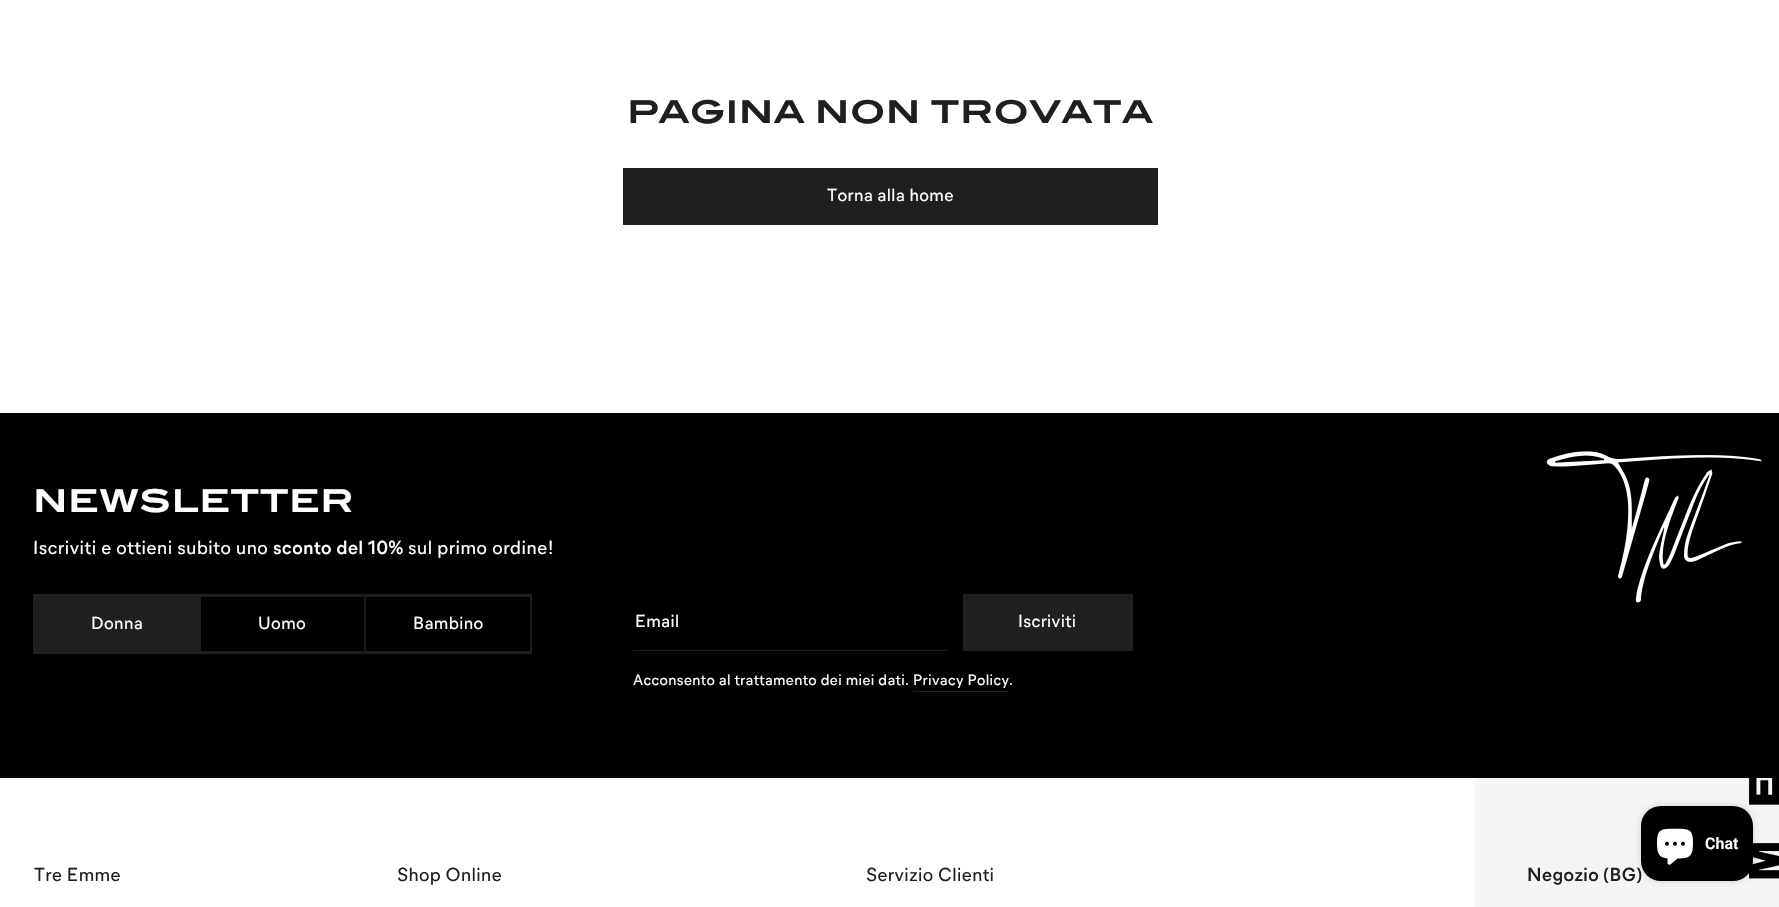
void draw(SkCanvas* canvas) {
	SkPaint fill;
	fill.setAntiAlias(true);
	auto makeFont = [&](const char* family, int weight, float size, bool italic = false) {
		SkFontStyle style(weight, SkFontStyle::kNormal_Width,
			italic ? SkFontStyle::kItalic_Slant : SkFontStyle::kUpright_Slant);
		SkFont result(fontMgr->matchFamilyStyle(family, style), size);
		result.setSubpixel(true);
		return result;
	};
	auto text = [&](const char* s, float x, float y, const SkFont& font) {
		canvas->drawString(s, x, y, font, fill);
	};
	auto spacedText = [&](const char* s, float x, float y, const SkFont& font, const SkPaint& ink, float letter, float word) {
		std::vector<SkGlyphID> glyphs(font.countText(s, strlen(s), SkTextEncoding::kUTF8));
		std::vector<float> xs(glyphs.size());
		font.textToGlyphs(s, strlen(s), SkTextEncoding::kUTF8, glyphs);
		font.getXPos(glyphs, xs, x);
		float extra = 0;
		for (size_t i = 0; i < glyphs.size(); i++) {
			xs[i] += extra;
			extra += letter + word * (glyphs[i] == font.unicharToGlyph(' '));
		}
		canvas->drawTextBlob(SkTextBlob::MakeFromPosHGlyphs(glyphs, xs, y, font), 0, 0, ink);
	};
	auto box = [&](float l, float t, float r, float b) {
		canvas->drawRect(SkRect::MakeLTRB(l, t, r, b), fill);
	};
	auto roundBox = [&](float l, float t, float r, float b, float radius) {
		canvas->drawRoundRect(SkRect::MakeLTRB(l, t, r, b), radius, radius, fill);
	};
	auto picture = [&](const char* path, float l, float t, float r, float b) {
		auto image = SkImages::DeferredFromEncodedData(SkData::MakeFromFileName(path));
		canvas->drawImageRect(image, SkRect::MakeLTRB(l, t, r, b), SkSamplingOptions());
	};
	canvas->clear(0xFFFFFFFF);
	fill.setColor(0xFF1F1F1F);
	box(623, 168, 1158, 225);
	fill.setColor(0xFF000000);
	box(0, 413, 1779, 778);
	fill.setColor(0xFF1F1F1F);
	box(531, 594, 532, 654);
	box(33, 594, 34, 654);
	box(35, 597, 199, 651);
	box(34, 594, 531, 597);
	box(199, 594, 200, 654);
	box(34, 651, 200, 654);
	box(34, 594, 35, 654);
	box(364, 594, 365, 654);
	box(200, 651, 365, 654);
	box(200, 594, 201, 654);
	box(530, 594, 531, 654);
	box(365, 651, 531, 654);
	box(365, 594, 366, 654);
	box(633, 650, 948, 651);
	box(963, 594, 1133, 651);
	box(913, 691, 1009, 692);
	picture("image0.png", 1546, 451, 1762, 603);
	fill.setColor(0xFFF5F5F5);
	box(1475, 778, 1779, 907);
	picture("image1.png", 1749, 778, 1779, 879);
	fill.setColor(0x26000000);
	fill.setMaskFilter(SkMaskFilter::MakeBlur(kNormal_SkBlurStyle, 3));
	canvas->drawRoundRect(SkRect::MakeLTRB(1641, 806, 1753, 881), 20, 20, fill);
	fill.setMaskFilter(nullptr);
	auto font1 = makeFont("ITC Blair", 700, 31.25f);
	fill.setColor(0xFF1F1F1F);
	spacedText("PAGINA NON TROVATA", 627, 123, font1, fill, 0.38f, 0);
	auto font2 = makeFont("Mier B", 400, 17.5f);
	fill.setColor(0xFFFFFFFF);
	spacedText("Torna alla home", 827, 201, font2, fill, 0.38f, 0);
	spacedText("NEWSLETTER", 33, 512, font1, fill, 0.38f, 0);
	auto font3 = makeFont("Mier B", 400, 18.75f);
	spacedText("Iscriviti e ottieni subito uno", 33, 554, font3, fill, 0.55f, 0);
	auto font4 = makeFont("Mier B", 600, 18.75f);
	spacedText("sconto del 10%", 273, 554, font4, fill, 0.55f, 0);
	spacedText("sul primo ordine!", 408, 554, font3, fill, 0.55f, 0);
	spacedText("Donna", 91, 629, font2, fill, 0.38f, 0);
	spacedText("Uomo", 258, 629, font2, fill, 0.38f, 0);
	spacedText("Bambino", 413, 629, font2, fill, 0.38f, 0);
	spacedText("Email", 635, 627, font2, fill, 0.38f, 0);
	spacedText("Iscriviti", 1018, 627, font2, fill, 0.38f, 0);
	auto font5 = makeFont("Mier B", 400, 15);
	spacedText("Acconsento al trattamento dei miei dati. Privacy Policy", 633, 685, font5, fill, 0.38f, 0);
	spacedText(".", 1009, 685, font5, fill, 0.38f, 0);
	fill.setColor(0xFF1F1F1F);
	spacedText("Tre Emme", 34, 881, font3, fill, 0.38f, 0);
	spacedText("Shop Online", 397, 881, font3, fill, 0.38f, 0);
	spacedText("Servizio Clienti", 866, 881, font3, fill, 0.38f, 0);
	spacedText("Negozio (BG)", 1527, 881, font4, fill, 0.38f, 0);
	fill.setColor(0xFF000000);
	roundBox(1641, 806, 1753, 881, 20);
	picture("image2.png", 1657, 828, 1693, 865);
	auto font6 = makeFont("Roboto", 600, 16);
	fill.setColor(0xFFFFFFFF);
	text("Chat", 1705, 849, font6);
}
